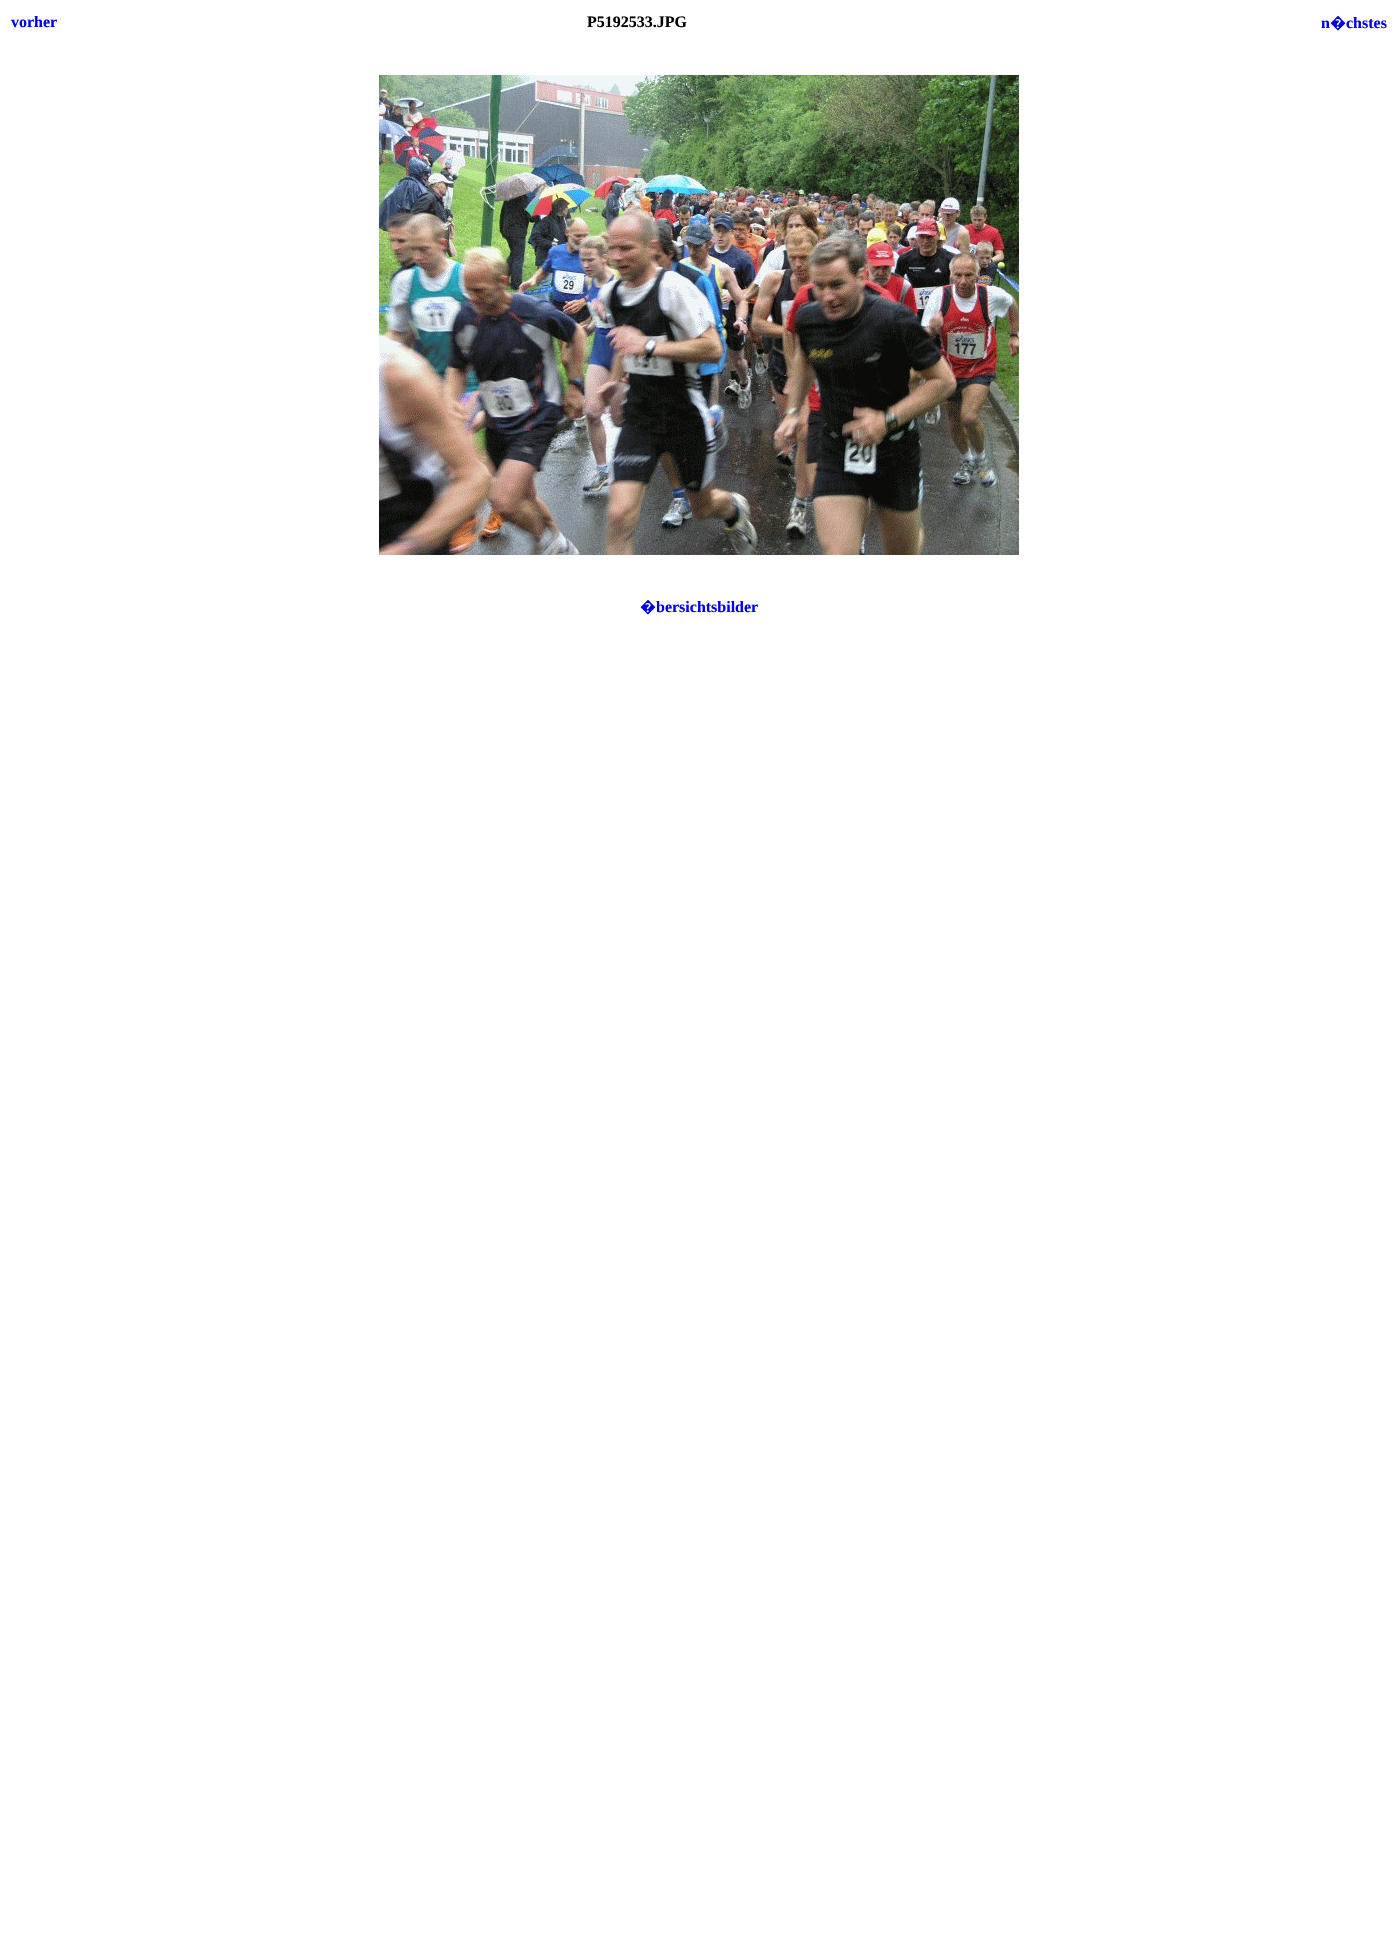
void draw(SkCanvas* canvas) {
	SkPaint fill;
	fill.setAntiAlias(true);
	auto makeFont = [&](const char* family, int weight, float size, bool italic = false) {
		SkFontStyle style(weight, SkFontStyle::kNormal_Width,
			italic ? SkFontStyle::kItalic_Slant : SkFontStyle::kUpright_Slant);
		SkFont result(fontMgr->matchFamilyStyle(family, style), size);
		result.setSubpixel(true);
		return result;
	};
	auto text = [&](const char* s, float x, float y, const SkFont& font) {
		canvas->drawString(s, x, y, font, fill);
	};
	auto picture = [&](const char* path, float l, float t, float r, float b) {
		auto image = SkImages::DeferredFromEncodedData(SkData::MakeFromFileName(path));
		canvas->drawImageRect(image, SkRect::MakeLTRB(l, t, r, b), SkSamplingOptions());
	};
	canvas->clear(0xFFFFFFFF);
	picture("image0.png", 379, 75, 1019, 555);
	auto font1 = makeFont("Liberation Serif", 700, 16);
	fill.setColor(0xFF0000EE);
	text("vorher", 11, 27, font1);
	fill.setColor(0xFF000000);
	text("P5192533.JPG", 587, 27, font1);
	fill.setColor(0xFF0000EE);
	text("n", 1321, 28, font1);
	auto font2 = makeFont("Noto Sans", 700, 16);
	text("�", 1330, 28, font2);
	text("chstes", 1346, 28, font1);
	text("�", 640, 612, font2);
	text("bersichtsbilder", 656, 612, font1);
}
